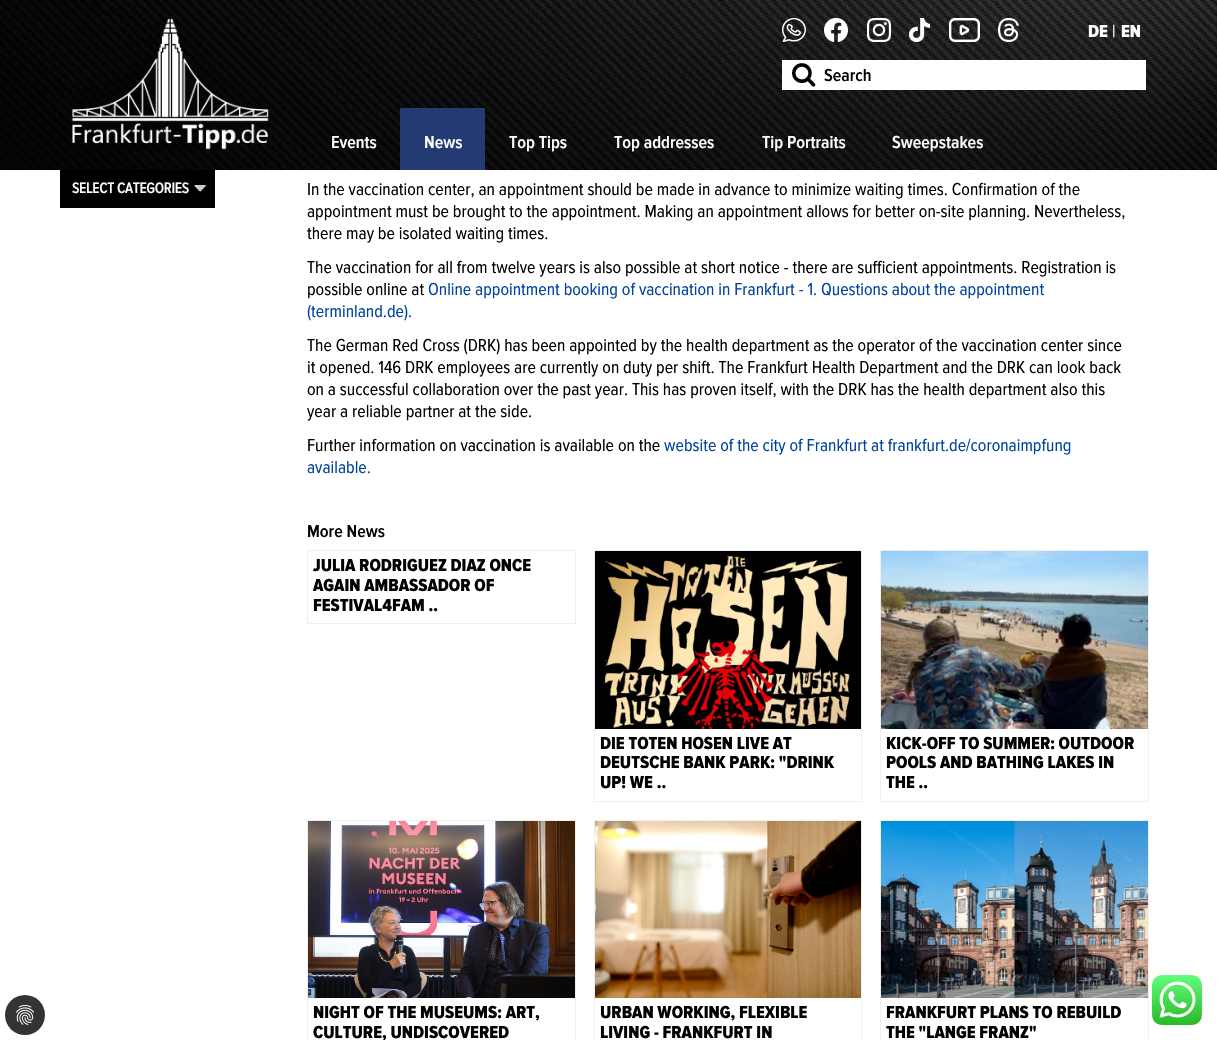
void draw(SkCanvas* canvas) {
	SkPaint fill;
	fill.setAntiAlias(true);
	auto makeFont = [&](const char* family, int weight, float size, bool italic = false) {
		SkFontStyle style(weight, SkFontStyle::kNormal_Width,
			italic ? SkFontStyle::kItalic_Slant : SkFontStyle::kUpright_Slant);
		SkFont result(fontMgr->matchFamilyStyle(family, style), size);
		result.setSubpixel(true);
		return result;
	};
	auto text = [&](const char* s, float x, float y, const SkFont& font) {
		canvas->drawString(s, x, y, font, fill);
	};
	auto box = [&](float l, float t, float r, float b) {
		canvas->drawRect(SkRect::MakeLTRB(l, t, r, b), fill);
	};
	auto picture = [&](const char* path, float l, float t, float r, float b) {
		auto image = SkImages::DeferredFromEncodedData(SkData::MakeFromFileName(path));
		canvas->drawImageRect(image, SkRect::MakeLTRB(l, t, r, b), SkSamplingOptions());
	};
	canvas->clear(0xFFFFFFFF);
	picture("image0.png", 0, 0, 1217, 170);
	picture("image1.png", 782, 18, 806, 42);
	picture("image2.png", 824, 18, 848, 42);
	picture("image3.png", 867, 18, 891, 42);
	picture("image4.png", 909, 18, 930, 42);
	picture("image5.png", 949, 18, 980, 42);
	picture("image6.png", 998, 18, 1019, 42);
	picture("image7.png", 72, 18, 269, 151);
	fill.setColor(0xFF243A72);
	box(400, 108, 485, 170);
	fill.setColor(0xFF000000);
	box(60, 170, 215, 208);
	picture("image8.png", 194, 185, 206, 192);
	fill.setColor(0xFFFFFFFF);
	box(782, 60, 1146, 90);
	picture("image9.png", 792, 63, 816, 87);
	fill.setColor(0xFF333333);
	canvas->drawCircle(25, 1015, 20, fill);
	picture("image10.png", 16, 1005, 34, 1025);
	fill.setStyle(SkPaint::kStroke_Style);
	fill.setStrokeWidth(1);
	fill.setColor(0xFFEFEFEF);
	canvas->drawRect(SkRect::MakeLTRB(307.5f, 550.5f, 575.5f, 623.5f), fill);
	canvas->drawRect(SkRect::MakeLTRB(594.5f, 550.5f, 861.5f, 801.5f), fill);
	picture("image11.png", 595, 551, 861, 729);
	canvas->drawRect(SkRect::MakeLTRB(880.5f, 550.5f, 1148.5f, 801.5f), fill);
	picture("image12.png", 881, 551, 1148, 729);
	canvas->drawRect(SkRect::MakeLTRB(307.5f, 820.5f, 575.5f, 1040.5f), fill);
	picture("image13.png", 308, 821, 575, 998);
	canvas->drawRect(SkRect::MakeLTRB(594.5f, 820.5f, 861.5f, 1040.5f), fill);
	picture("image14.png", 595, 821, 861, 998);
	canvas->drawRect(SkRect::MakeLTRB(880.5f, 820.5f, 1148.5f, 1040.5f), fill);
	picture("image15.png", 881, 821, 1148, 998);
	picture("image16.png", 1152, 975, 1202, 1025);
	auto font1 = makeFont("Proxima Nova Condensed", 800, 18);
	fill.setStyle(SkPaint::kFill_Style);
	fill.setColor(0xFFFFFFFF);
	text("DE", 1088, 37, font1);
	auto font2 = makeFont("Proxima Nova Condensed", 400, 18);
	text("|", 1112, 37, font2);
	text("EN", 1121, 37, font1);
	auto font3 = makeFont("Proxima Nova Condensed", 600, 18);
	text("Events", 331, 148, font3);
	text("News", 424, 148, font3);
	text("Top Tips", 509, 148, font3);
	text("Top addresses", 614, 148, font3);
	text("Tip Portraits", 762, 148, font3);
	text("Sweepstakes", 892, 148, font3);
	auto font4 = makeFont("Proxima Nova Condensed", 700, 15);
	text("SELECT CATEGORIES", 72, 193, font4);
	fill.setColor(0xFF010101);
	text("Search", 824, 81, font3);
	text("In the vaccination center, an appointment should be made in advance to minimize waiting times. Confirmation of the", 307, 195, font2);
	text("appointment must be brought to the appointment. Making an appointment allows for better on-site planning. Nevertheless,", 307, 217, font2);
	text("there may be isolated waiting times.", 307, 239, font2);
	text("The vaccination for all from twelve years is also possible at short notice - there are sufficient appointments. Registration is", 307, 273, font2);
	text("possible online at", 307, 295, font2);
	fill.setColor(0xFF01449F);
	text("Online appointment booking of vaccination in Frankfurt - 1. Questions about the appointment", 428, 295, font2);
	text("(terminland.de).", 307, 317, font2);
	fill.setColor(0xFF010101);
	text("The German Red Cross (DRK) has been appointed by the health department as the operator of the vaccination center since", 307, 351, font2);
	text("it opened. 146 DRK employees are currently on duty per shift. The Frankfurt Health Department and the DRK can look back", 307, 373, font2);
	text("on a successful collaboration over the past year. This has proven itself, with the DRK has the health department also this", 307, 395, font2);
	text("year a reliable partner at the side.", 307, 417, font2);
	text("Further information on vaccination is available on the", 307, 451, font2);
	fill.setColor(0xFF01449F);
	text("website of the city of Frankfurt at frankfurt.de/coronaimpfung", 664, 451, font2);
	text("available.", 307, 473, font2);
	fill.setColor(0xFF010101);
	text("More News", 307, 537, font3);
	text("JULIA RODRIGUEZ DIAZ ONCE", 313, 571, font1);
	text("AGAIN AMBASSADOR OF", 313, 591, font1);
	text("FESTIVAL4FAM ..", 313, 611, font1);
	text("DIE TOTEN HOSEN LIVE AT", 600, 749, font1);
	text("DEUTSCHE BANK PARK: \"DRINK", 600, 768, font1);
	text("UP! WE ..", 600, 788, font1);
	text("KICK-OFF TO SUMMER: OUTDOOR", 886, 749, font1);
	text("POOLS AND BATHING LAKES IN", 886, 768, font1);
	text("THE ..", 886, 788, font1);
	text("NIGHT OF THE MUSEUMS: ART,", 313, 1018, font1);
	text("CULTURE, UNDISCOVERED", 313, 1038, font1);
	text("URBAN WORKING, FLEXIBLE", 600, 1018, font1);
	text("LIVING - FRANKFURT IN", 600, 1038, font1);
	text("FRANKFURT PLANS TO REBUILD", 886, 1018, font1);
	text("THE \"LANGE FRANZ\"", 886, 1038, font1);
}
